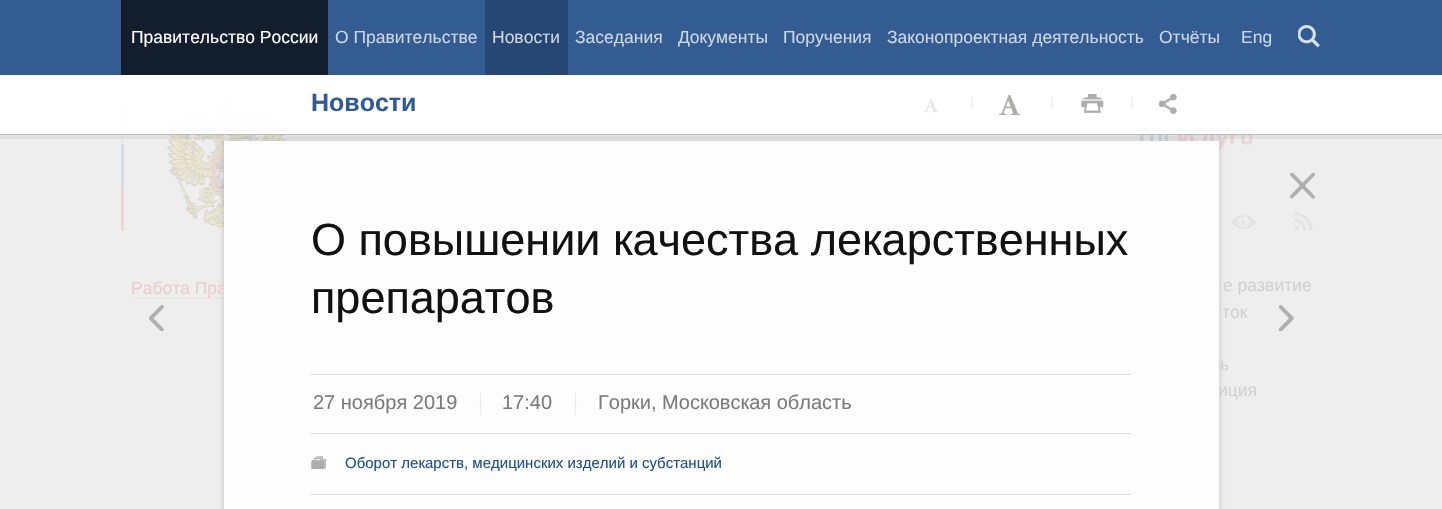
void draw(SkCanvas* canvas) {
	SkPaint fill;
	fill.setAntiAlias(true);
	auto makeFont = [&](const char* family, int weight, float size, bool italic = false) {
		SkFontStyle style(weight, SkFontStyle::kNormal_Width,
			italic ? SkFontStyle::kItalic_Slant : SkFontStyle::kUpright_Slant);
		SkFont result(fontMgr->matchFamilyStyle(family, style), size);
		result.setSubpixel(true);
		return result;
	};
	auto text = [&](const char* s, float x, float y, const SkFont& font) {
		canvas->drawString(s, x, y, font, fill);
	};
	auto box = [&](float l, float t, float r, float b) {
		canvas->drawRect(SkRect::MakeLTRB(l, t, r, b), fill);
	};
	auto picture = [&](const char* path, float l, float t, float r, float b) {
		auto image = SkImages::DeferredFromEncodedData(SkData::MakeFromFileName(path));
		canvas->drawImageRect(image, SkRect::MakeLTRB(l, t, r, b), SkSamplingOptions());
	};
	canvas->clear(0xFFEEEEEE);
	picture("image7.png", 167, 100, 286, 228);
	picture("image8.png", 1140, 131, 1253, 150);
	fill.setStyle(SkPaint::kStroke_Style);
	fill.setStrokeWidth(1.2f);
	fill.setColor(0xFFE9D0CE);
	fill.setPathEffect(SkDashPathEffect::Make({{1.25f, 1.25f}}, 0));
	canvas->drawPath(SkPathBuilder().moveTo(131, 298).lineTo(319, 298).detach(), fill);
	fill.setPathEffect(nullptr);
	fill.setStyle(SkPaint::kFill_Style);
	fill.setColor(0x24000000);
	fill.setMaskFilter(SkMaskFilter::MakeBlur(kNormal_SkBlurStyle, 2.5f));
	canvas->drawRect(SkRect::MakeLTRB(223, 140, 1220, 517), fill);
	fill.setMaskFilter(nullptr);
	fill.setColor(0xFFEBEBEB);
	box(121, 100, 124, 144);
	fill.setStyle(SkPaint::kStroke_Style);
	fill.setStrokeWidth(4);
	fill.setColor(0x12323232);
	canvas->drawRect(SkRect::MakeLTRB(-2, -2, 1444, 137), fill);
	fill.setStyle(SkPaint::kFill_Style);
	fill.setColor(0xFF325C92);
	box(0, 0, 1442, 75);
	fill.setColor(0xFF121D2D);
	box(121, 0, 328, 75);
	fill.setColor(0xFF264773);
	box(485, 0, 568, 75);
	picture("image0.png", 1298, 25, 1320, 48);
	fill.setColor(0xF2FFFFFF);
	box(0, 75, 1442, 134);
	fill.setColor(0xFFBABABA);
	box(0, 134, 1442, 135);
	picture("image1.png", 924, 99, 938, 113);
	fill.setStyle(SkPaint::kStroke_Style);
	fill.setStrokeWidth(1.2f);
	fill.setColor(0xFFDBDBDB);
	fill.setPathEffect(SkDashPathEffect::Make({{1.25f, 1.25f}}, 0));
	canvas->drawPath(SkPathBuilder().moveTo(972, 96).lineTo(972, 107.5f).detach(), fill);
	fill.setPathEffect(nullptr);
	picture("image2.png", 999, 95, 1021, 115);
	fill.setPathEffect(SkDashPathEffect::Make({{1.25f, 1.25f}}, 0));
	canvas->drawPath(SkPathBuilder().moveTo(1052, 96).lineTo(1052, 107.5f).detach(), fill);
	fill.setPathEffect(nullptr);
	picture("image3.png", 1081, 94, 1104, 113);
	fill.setPathEffect(SkDashPathEffect::Make({{1.25f, 1.25f}}, 0));
	canvas->drawPath(SkPathBuilder().moveTo(1132, 96).lineTo(1132, 107.5f).detach(), fill);
	fill.setPathEffect(nullptr);
	picture("image4.png", 1159, 94, 1177, 114);
	picture("image6.png", 1290, 173, 1315, 199);
	fill.setStyle(SkPaint::kFill_Style);
	fill.setColor(0xFFD6DDE5);
	box(121, 144, 124, 188);
	fill.setColor(0xFFECD7D5);
	box(121, 188, 124, 231);
	picture("image9.png", 1231, 215, 1256, 229);
	picture("image10.png", 1294, 212, 1313, 231);
	picture("image11.png", 149, 305, 164, 331);
	picture("image12.png", 1279, 305, 1294, 331);
	auto font1 = makeFont("Liberation Sans", 400, 17.5f);
	fill.setColor(0xFFFFFFFF);
	text("Правительство России", 131, 43, font1);
	fill.setColor(0xFFCDD6E1);
	text("О Правительстве", 335, 43, font1);
	text("Новости", 492, 43, font1);
	text("Заседания", 575, 43, font1);
	text("Документы", 678, 43, font1);
	text("Поручения", 783, 43, font1);
	text("Законопроектная деятельность", 887, 43, font1);
	text("Отчёты", 1159, 43, font1);
	text("Eng", 1241, 43, font1);
	auto font2 = makeFont("Liberation Sans", 700, 25);
	fill.setColor(0xFF305B94);
	text("Новости", 311, 111, font2);
	fill.setColor(0xFFE9D0CE);
	text("Работа Пра", 131, 294, font1);
	fill.setColor(0xFFD2D2D2);
	text("е развитие", 1223, 291, font1);
	text("ток", 1222, 318, font1);
	text("ь", 1220, 370, font1);
	text("иция", 1218, 396, font1);
	fill.setColor(0xFFFDFDFD);
	box(224, 141, 1219, 509);
	auto font3 = makeFont("Liberation Sans", 400, 20);
	fill.setColor(0xFF7B7B7B);
	text("Горки, Московская область", 598, 409, font3);
	fill.setStyle(SkPaint::kStroke_Style);
	fill.setColor(0xFFDCDCDC);
	fill.setPathEffect(SkDashPathEffect::Make({{1.25f, 1.25f}}, 0));
	canvas->drawPath(SkPathBuilder().moveTo(575.5f, 392.5f).lineTo(575.5f, 414).detach(), fill);
	fill.setPathEffect(nullptr);
	fill.setStyle(SkPaint::kFill_Style);
	fill.setColor(0xFF7B7B7B);
	text("17:40", 502, 409, font3);
	fill.setStyle(SkPaint::kStroke_Style);
	fill.setColor(0xFFDCDCDC);
	fill.setPathEffect(SkDashPathEffect::Make({{1.25f, 1.25f}}, 0));
	canvas->drawPath(SkPathBuilder().moveTo(480.5f, 392.5f).lineTo(480.5f, 414).detach(), fill);
	fill.setPathEffect(nullptr);
	fill.setStyle(SkPaint::kFill_Style);
	fill.setColor(0xFF7B7B7B);
	text("27 ноября 2019", 313, 409, font3);
	fill.setColor(0xFFDCDCDC);
	box(311, 433, 1131, 434);
	box(311, 374, 1131, 375);
	auto font4 = makeFont("Liberation Sans", 400, 15);
	fill.setColor(0xFF204E8A);
	text("Оборот лекарств, медицинских изделий и субстанций", 345, 468, font4);
	auto font5 = makeFont("Liberation Sans", 400, 45);
	fill.setColor(0xFF111111);
	text("препаратов", 311, 313, font5);
	text("О повышении качества лекарственных", 311, 255, font5);
	fill.setColor(0xFFDCDCDC);
	box(311, 494, 1131, 495);
	picture("image5.png", 311, 456, 326, 469);
}
